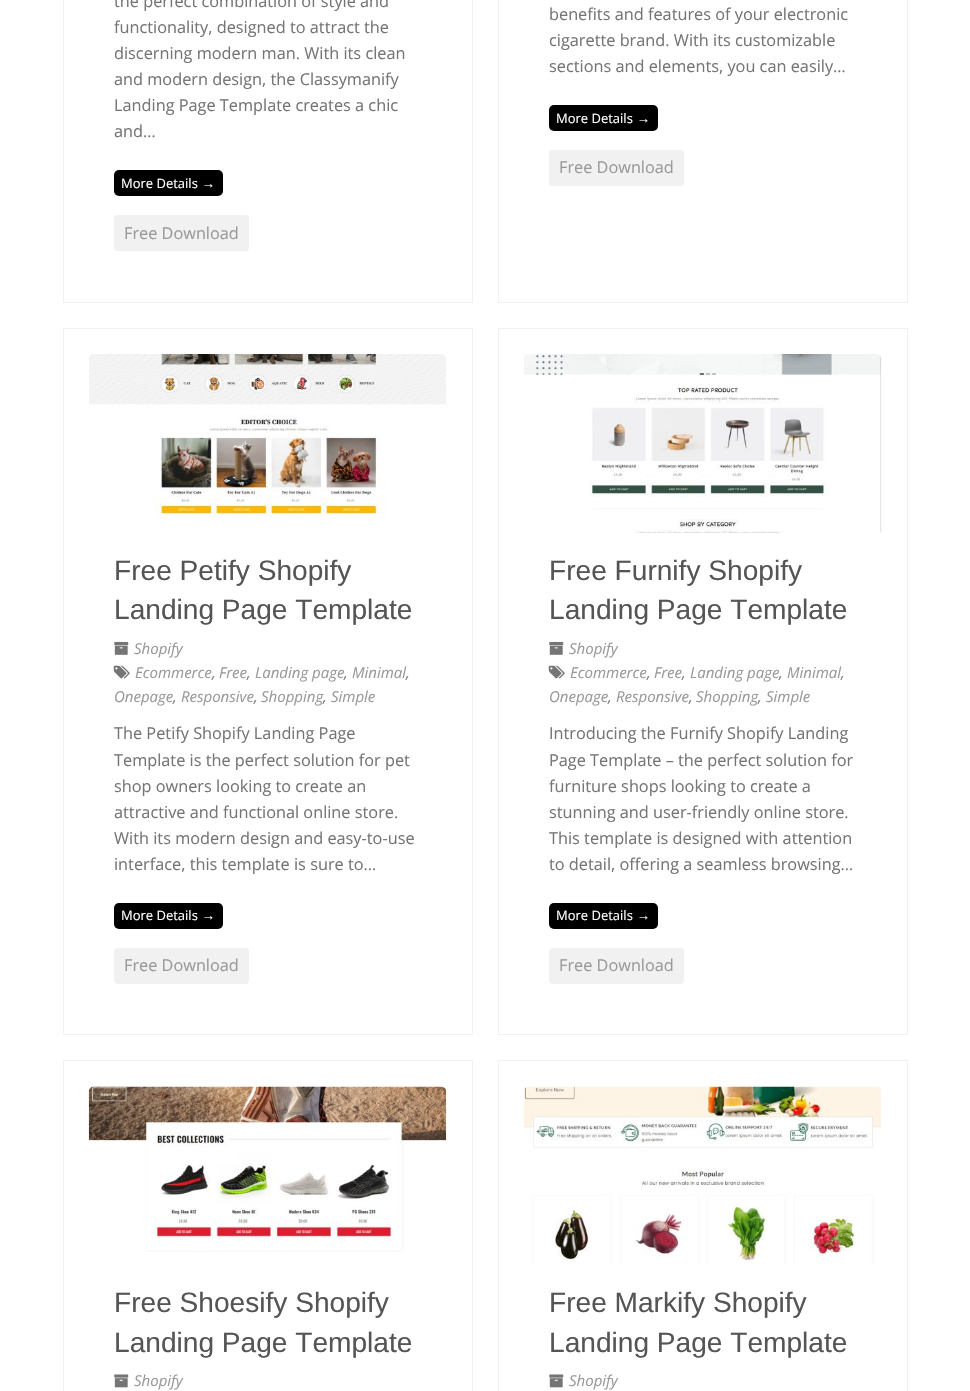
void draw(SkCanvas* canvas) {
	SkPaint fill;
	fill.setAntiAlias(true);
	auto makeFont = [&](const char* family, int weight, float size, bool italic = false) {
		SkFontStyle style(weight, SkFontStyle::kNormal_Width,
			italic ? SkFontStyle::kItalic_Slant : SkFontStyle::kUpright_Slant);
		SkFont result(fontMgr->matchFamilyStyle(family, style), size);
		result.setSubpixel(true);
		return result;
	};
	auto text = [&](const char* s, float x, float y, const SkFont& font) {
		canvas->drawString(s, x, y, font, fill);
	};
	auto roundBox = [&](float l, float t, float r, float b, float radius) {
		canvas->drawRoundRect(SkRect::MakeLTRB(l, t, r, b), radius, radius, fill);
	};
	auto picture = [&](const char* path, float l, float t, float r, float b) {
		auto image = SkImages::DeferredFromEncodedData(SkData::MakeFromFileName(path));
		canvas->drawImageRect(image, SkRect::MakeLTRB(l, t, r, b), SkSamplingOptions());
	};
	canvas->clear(0xFFFFFFFF);
	fill.setStyle(SkPaint::kStroke_Style);
	fill.setStrokeWidth(1);
	fill.setColor(0xFFF1F1F1);
	canvas->drawRect(SkRect::MakeLTRB(63.5f, -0.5f, 472.5f, 302.5f), fill);
	fill.setStyle(SkPaint::kFill_Style);
	fill.setColor(0xFF000000);
	roundBox(114, 170, 223, 196, 5);
	fill.setColor(0xFFF1F1F1);
	roundBox(114, 215, 249, 251, 4);
	fill.setStyle(SkPaint::kStroke_Style);
	canvas->drawRect(SkRect::MakeLTRB(498.5f, -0.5f, 907.5f, 302.5f), fill);
	fill.setStyle(SkPaint::kFill_Style);
	fill.setColor(0xFF000000);
	roundBox(549, 105, 658, 131, 5);
	fill.setColor(0xFFF1F1F1);
	roundBox(549, 150, 684, 186, 4);
	fill.setStyle(SkPaint::kStroke_Style);
	canvas->drawRect(SkRect::MakeLTRB(63.5f, 328.5f, 472.5f, 1034.5f), fill);
	picture("image0.png", 89, 354, 446, 519);
	picture("image1.png", 114, 641, 129, 655);
	picture("image2.png", 113, 665, 130, 679);
	fill.setStyle(SkPaint::kFill_Style);
	fill.setColor(0xFF000000);
	roundBox(114, 903, 223, 929, 5);
	fill.setColor(0xFFF1F1F1);
	roundBox(114, 948, 249, 984, 4);
	fill.setStyle(SkPaint::kStroke_Style);
	canvas->drawRect(SkRect::MakeLTRB(498.5f, 328.5f, 907.5f, 1034.5f), fill);
	picture("image3.png", 524, 354, 882, 533);
	picture("image1.png", 549, 641, 564, 655);
	picture("image2.png", 548, 665, 565, 679);
	fill.setStyle(SkPaint::kFill_Style);
	fill.setColor(0xFF000000);
	roundBox(549, 903, 658, 929, 5);
	fill.setColor(0xFFF1F1F1);
	roundBox(549, 948, 684, 984, 4);
	fill.setStyle(SkPaint::kStroke_Style);
	canvas->drawRect(SkRect::MakeLTRB(63.5f, 1060.5f, 472.5f, 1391.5f), fill);
	picture("image4.png", 88, 1086, 447, 1252);
	picture("image5.png", 114, 1374, 129, 1388);
	canvas->drawRect(SkRect::MakeLTRB(498.5f, 1060.5f, 907.5f, 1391.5f), fill);
	picture("image6.png", 524, 1086, 881, 1265);
	picture("image5.png", 549, 1374, 564, 1388);
	auto font1 = makeFont("Open Sans", 400, 16.3f);
	fill.setStyle(SkPaint::kFill_Style);
	fill.setColor(0xFF757575);
	text("the perfect combination of style and", 114, 7, font1);
	text("functionality, designed to attract the", 114, 33, font1);
	text("discerning modern man. With its clean", 114, 59, font1);
	text("and modern design, the Classymanify", 114, 85, font1);
	text("Landing Page Template creates a chic", 114, 111, font1);
	text("and…", 114, 137, font1);
	auto font2 = makeFont("Open Sans", 400, 13);
	fill.setColor(0xFFFFFFFF);
	text("More Details", 121, 188, font2);
	auto font3 = makeFont("Liberation Sans", 400, 13);
	text("→", 202, 188, font3);
	fill.setColor(0xFF999999);
	text("Free Download", 124, 239, font1);
	fill.setColor(0xFF757575);
	text("benefits and features of your electronic", 549, 20, font1);
	text("cigarette brand. With its customizable", 549, 46, font1);
	text("sections and elements, you can easily…", 549, 72, font1);
	fill.setColor(0xFFFFFFFF);
	text("More Details", 556, 123, font2);
	text("→", 637, 123, font3);
	fill.setColor(0xFF999999);
	text("Free Download", 559, 173, font1);
	auto font4 = makeFont("Liberation Sans", 400, 28.1f);
	fill.setColor(0xFF555555);
	text("Free Petify Shopify", 114, 580, font4);
	text("Landing Page Template", 114, 619, font4);
	auto font5 = makeFont("Open Sans", 400, 15, true);
	fill.setColor(0xFF999999);
	text("Shopify", 134, 654, font5);
	text("Ecommerce", 135, 678, font5);
	fill.setColor(0xFF757575);
	text(",", 212, 678, font5);
	fill.setColor(0xFF999999);
	text("Free", 219, 678, font5);
	fill.setColor(0xFF757575);
	text(",", 247, 678, font5);
	fill.setColor(0xFF999999);
	text("Landing page", 255, 678, font5);
	fill.setColor(0xFF757575);
	text(",", 344, 678, font5);
	fill.setColor(0xFF999999);
	text("Minimal", 352, 678, font5);
	fill.setColor(0xFF757575);
	text(",", 406, 678, font5);
	fill.setColor(0xFF999999);
	text("Onepage", 114, 702, font5);
	fill.setColor(0xFF757575);
	text(",", 173, 702, font5);
	fill.setColor(0xFF999999);
	text("Responsive", 181, 702, font5);
	fill.setColor(0xFF757575);
	text(",", 254, 702, font5);
	fill.setColor(0xFF999999);
	text("Shopping", 261, 702, font5);
	text("Simple", 331, 702, font5);
	fill.setColor(0xFF757575);
	text(",", 323, 702, font5);
	text("The Petify Shopify Landing Page", 114, 739, font1);
	text("Template is the perfect solution for pet", 114, 766, font1);
	text("shop owners looking to create an", 114, 792, font1);
	text("attractive and functional online store.", 114, 818, font1);
	text("With its modern design and easy-to-use", 114, 844, font1);
	text("interface, this template is sure to…", 114, 870, font1);
	fill.setColor(0xFFFFFFFF);
	text("More Details", 121, 920, font2);
	text("→", 202, 920, font3);
	fill.setColor(0xFF999999);
	text("Free Download", 124, 971, font1);
	fill.setColor(0xFF555555);
	text("Free Furnify Shopify", 549, 580, font4);
	text("Landing Page Template", 549, 619, font4);
	fill.setColor(0xFF999999);
	text("Shopify", 569, 654, font5);
	text("Ecommerce", 570, 678, font5);
	fill.setColor(0xFF757575);
	text(",", 647, 678, font5);
	fill.setColor(0xFF999999);
	text("Free", 654, 678, font5);
	fill.setColor(0xFF757575);
	text(",", 682, 678, font5);
	fill.setColor(0xFF999999);
	text("Landing page", 690, 678, font5);
	fill.setColor(0xFF757575);
	text(",", 779, 678, font5);
	fill.setColor(0xFF999999);
	text("Minimal", 787, 678, font5);
	fill.setColor(0xFF757575);
	text(",", 841, 678, font5);
	fill.setColor(0xFF999999);
	text("Onepage", 549, 702, font5);
	fill.setColor(0xFF757575);
	text(",", 608, 702, font5);
	fill.setColor(0xFF999999);
	text("Responsive", 616, 702, font5);
	fill.setColor(0xFF757575);
	text(",", 689, 702, font5);
	fill.setColor(0xFF999999);
	text("Shopping", 696, 702, font5);
	text("Simple", 766, 702, font5);
	fill.setColor(0xFF757575);
	text(",", 758, 702, font5);
	text("Introducing the Furnify Shopify Landing", 549, 739, font1);
	text("Page Template – the perfect solution for", 549, 766, font1);
	text("furniture shops looking to create a", 549, 792, font1);
	text("stunning and user-friendly online store.", 549, 818, font1);
	text("This template is designed with attention", 549, 844, font1);
	text("to detail, offering a seamless browsing…", 549, 870, font1);
	fill.setColor(0xFFFFFFFF);
	text("More Details", 556, 920, font2);
	text("→", 637, 920, font3);
	fill.setColor(0xFF999999);
	text("Free Download", 559, 971, font1);
	fill.setColor(0xFF555555);
	text("Free Shoesify Shopify", 114, 1312, font4);
	text("Landing Page Template", 114, 1352, font4);
	fill.setColor(0xFF999999);
	text("Shopify", 134, 1386, font5);
	fill.setColor(0xFF555555);
	text("Free Markify Shopify", 549, 1312, font4);
	text("Landing Page Template", 549, 1352, font4);
	fill.setColor(0xFF999999);
	text("Shopify", 569, 1386, font5);
}
